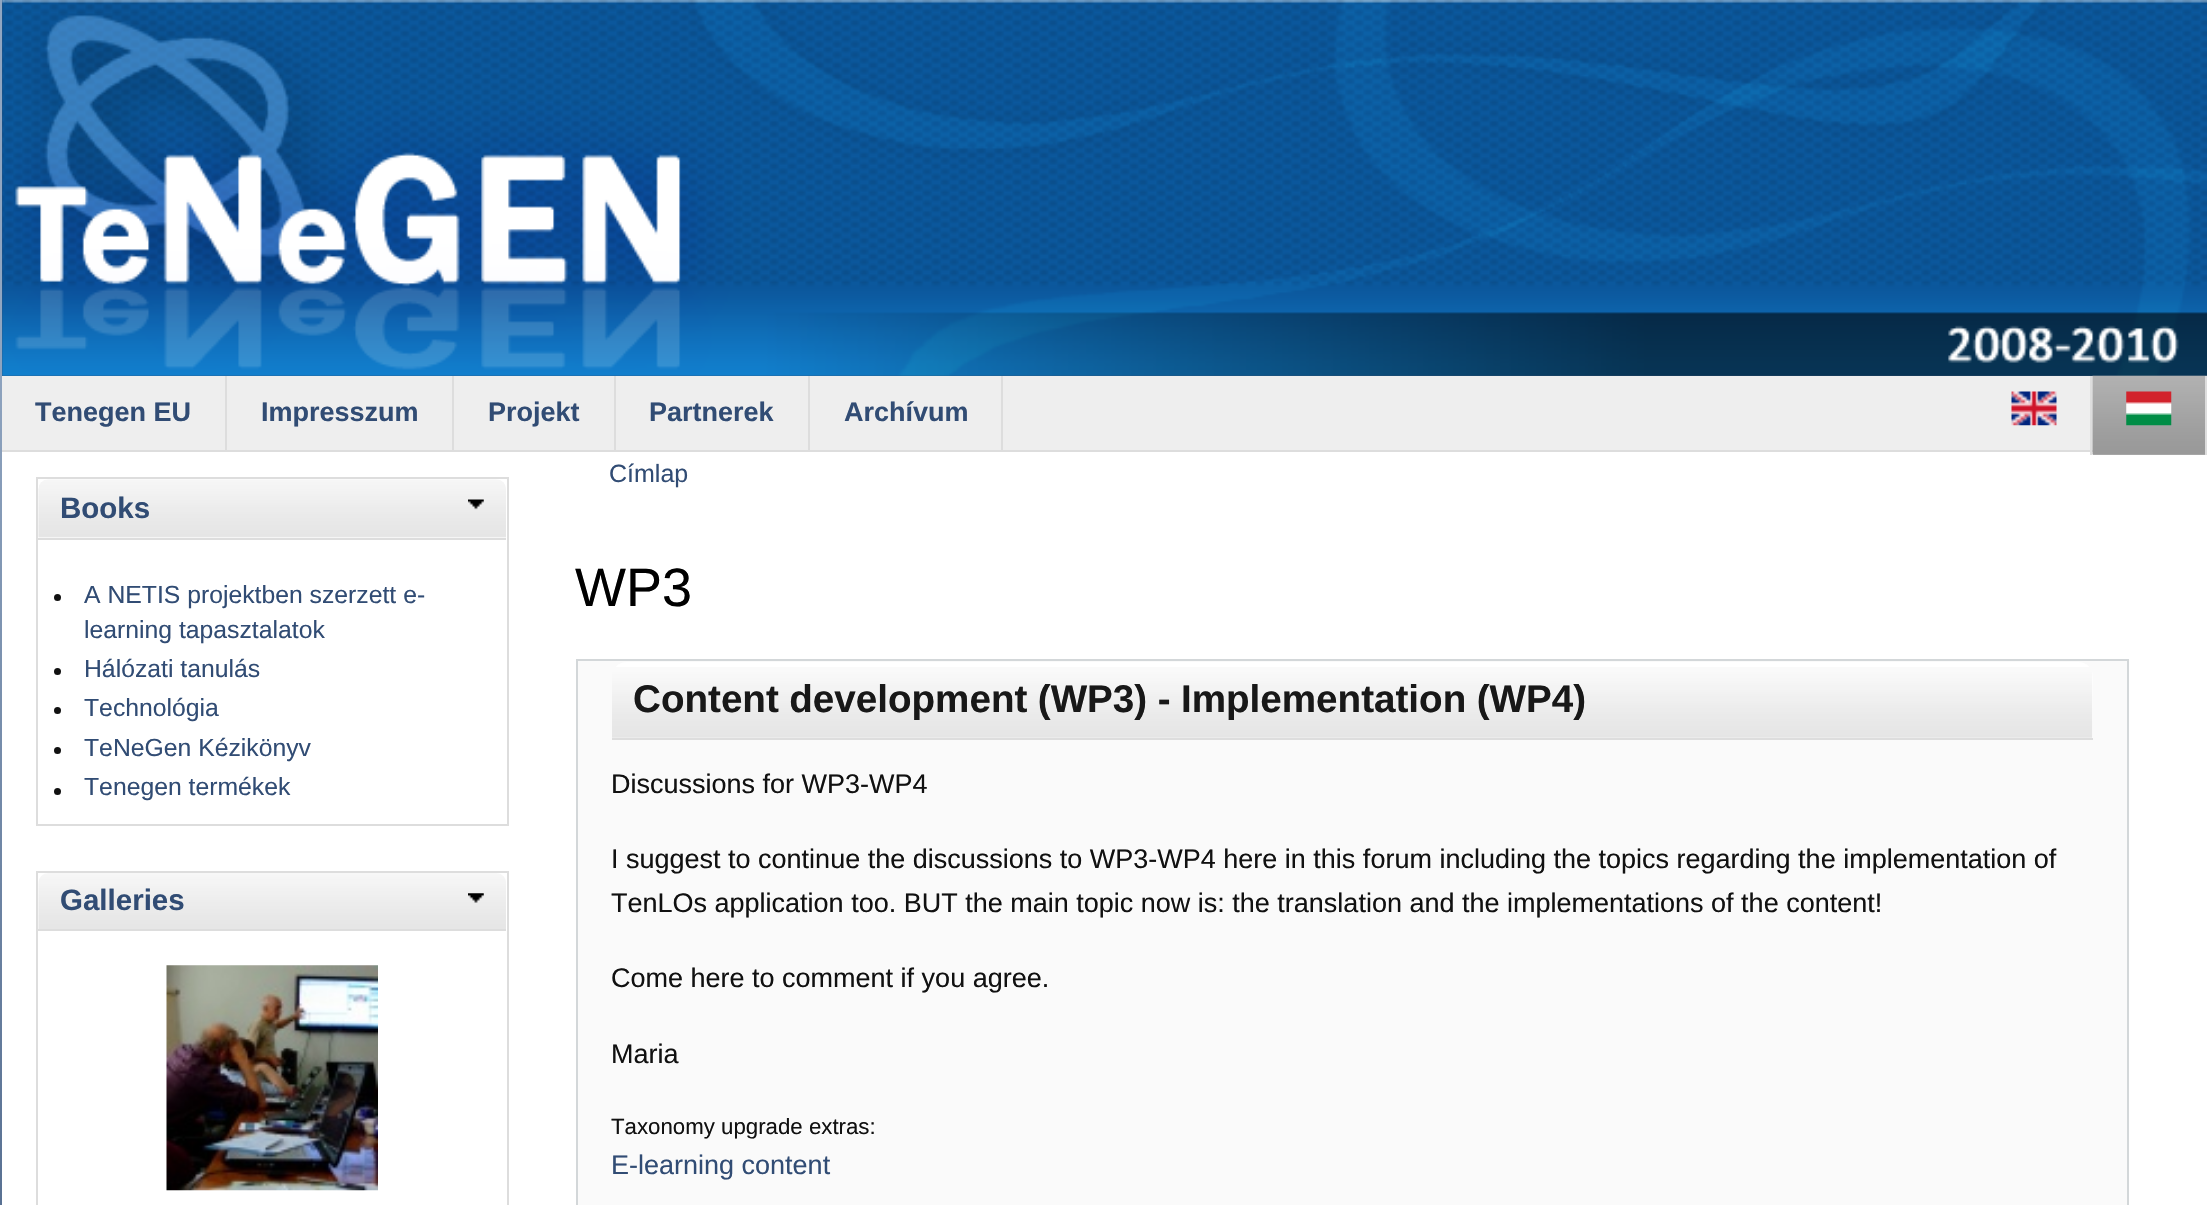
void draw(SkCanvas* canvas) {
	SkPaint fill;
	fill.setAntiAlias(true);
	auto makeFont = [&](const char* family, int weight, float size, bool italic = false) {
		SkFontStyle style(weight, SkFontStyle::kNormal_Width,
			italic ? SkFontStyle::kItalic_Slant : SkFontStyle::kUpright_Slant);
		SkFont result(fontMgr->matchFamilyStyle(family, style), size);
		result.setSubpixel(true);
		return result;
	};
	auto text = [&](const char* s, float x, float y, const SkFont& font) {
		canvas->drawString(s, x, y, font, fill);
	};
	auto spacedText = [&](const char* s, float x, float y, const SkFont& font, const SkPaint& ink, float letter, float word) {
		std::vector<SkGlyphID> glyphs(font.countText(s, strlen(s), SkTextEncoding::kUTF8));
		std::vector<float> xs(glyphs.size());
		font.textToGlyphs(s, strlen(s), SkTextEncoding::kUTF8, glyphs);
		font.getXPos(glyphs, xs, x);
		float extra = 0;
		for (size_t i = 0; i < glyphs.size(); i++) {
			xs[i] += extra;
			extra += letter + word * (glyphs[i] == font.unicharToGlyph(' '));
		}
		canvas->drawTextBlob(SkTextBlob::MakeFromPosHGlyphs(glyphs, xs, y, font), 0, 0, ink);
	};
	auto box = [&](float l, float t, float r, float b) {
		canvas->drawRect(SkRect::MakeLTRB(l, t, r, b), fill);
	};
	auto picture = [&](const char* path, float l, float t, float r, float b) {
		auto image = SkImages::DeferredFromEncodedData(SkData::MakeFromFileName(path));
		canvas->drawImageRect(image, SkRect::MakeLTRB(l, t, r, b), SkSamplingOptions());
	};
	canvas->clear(0xFFFFFFFF);
	picture("image0.png", 0, 0, 2, 1205);
	fill.setColor(0xFF3A4E6A);
	box(2, 0, 2207, 376);
	picture("image1.png", 2, 0, 2207, 376);
	fill.setColor(0xFFEEEEEE);
	box(2, 376, 2093, 450);
	fill.setColor(0xFFDDDDDD);
	box(2, 450, 2093, 452);
	box(225, 376, 227, 450);
	box(452, 376, 454, 450);
	box(614, 376, 616, 450);
	box(808, 376, 810, 450);
	box(1001, 376, 1003, 450);
	box(2090, 376, 2092, 455);
	picture("image2.png", 2011, 391, 2057, 426);
	fill.setColor(0xFFB3B3B3);
	box(2093, 454, 2205, 455);
	picture("image3.png", 2092, 375, 2207, 455);
	fill.setColor(0xFFDDDDDD);
	box(2205, 376, 2207, 455);
	picture("image4.png", 2126, 391, 2172, 426);
	fill.setStyle(SkPaint::kStroke_Style);
	fill.setStrokeWidth(2);
	canvas->drawRect(SkRect::MakeLTRB(37, 478, 508, 825), fill);
	picture("image5.png", 38, 479, 506, 538);
	fill.setStyle(SkPaint::kFill_Style);
	box(38, 538, 506, 540);
	picture("image6.png", 468, 499, 484, 510);
	fill.setColor(0xFF111111);
	canvas->drawCircle(57.5f, 597.5f, 3.5f, fill);
	canvas->drawCircle(57.5f, 671.5f, 3.5f, fill);
	canvas->drawCircle(57.5f, 710.5f, 3.5f, fill);
	canvas->drawCircle(57.5f, 750.5f, 3.5f, fill);
	canvas->drawCircle(57.5f, 791.5f, 3.5f, fill);
	fill.setStyle(SkPaint::kStroke_Style);
	fill.setColor(0xFFDDDDDD);
	canvas->drawRect(SkRect::MakeLTRB(37, 872, 508, 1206), fill);
	picture("image7.png", 38, 873, 506, 929);
	fill.setStyle(SkPaint::kFill_Style);
	box(38, 929, 506, 931);
	picture("image8.png", 468, 893, 484, 903);
	picture("image9.png", 166, 965, 378, 1191);
	fill.setColor(0xFFFAFAFA);
	canvas->drawRect(SkRect::MakeLTRB(577, 660, 2128, 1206), fill);
	fill.setStyle(SkPaint::kStroke_Style);
	fill.setColor(0xFFD3D7D9);
	canvas->drawRect(SkRect::MakeLTRB(577, 660, 2128, 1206), fill);
	fill.setStyle(SkPaint::kFill_Style);
	fill.setColor(0xFFFFFFFF);
	canvas->drawPath(SkPathBuilder().moveTo(626, 662).lineTo(2079, 662).cubicTo(2086.5f, 662, 2093, 668.5f, 2093, 676).lineTo(2093, 740).lineTo(612, 740).lineTo(612, 676).cubicTo(612, 668.5f, 618.5f, 662, 626, 662).close().detach(), fill);
	picture("image10.png", 612, 667, 2093, 738);
	fill.setColor(0xFFDDDDDD);
	box(612, 738, 2093, 740);
	auto font1 = makeFont("Liberation Sans", 700, 27);
	fill.setColor(0xFF314C74);
	text("Tenegen EU", 35, 421, font1);
	text("Impresszum", 261, 421, font1);
	text("Projekt", 488, 421, font1);
	text("Partnerek", 649, 421, font1);
	text("Archívum", 844, 421, font1);
	auto font2 = makeFont("Liberation Sans", 700, 29.5f);
	text("Books", 60, 518, font2);
	auto font3 = makeFont("Liberation Sans", 400, 24.75f);
	text("A NETIS projektben szerzett e-", 84, 603, font3);
	text("learning tapasztalatok", 84, 638, font3);
	text("Hálózati tanulás", 84, 677, font3);
	text("Technológia", 84, 716, font3);
	text("TeNeGen Kézikönyv", 84, 756, font3);
	text("Tenegen termékek", 84, 795, font3);
	text("Galleries", 60, 910, font2);
	auto font4 = makeFont("Liberation Sans", 400, 25);
	text("Címlap", 609, 482, font4);
	auto font5 = makeFont("Liberation Sans", 400, 54);
	fill.setColor(0xFF000000);
	text("WP3", 575, 606, font5);
	auto font6 = makeFont("Liberation Sans", 700, 38.6f);
	fill.setColor(0xFF181818);
	spacedText("Content development (WP3) - Implementation (WP4)", 633, 712, font6, fill, 0, -0.25f);
	auto font7 = makeFont("Liberation Sans", 400, 27);
	fill.setColor(0xFF111111);
	text("Discussions for WP3-WP4", 611, 793, font7);
	text("I suggest to continue the discussions to WP3-WP4 here in this forum including the topics regarding the implementation of", 611, 868, font7);
	text("TenLOs application too. BUT the main topic now is: the translation and the implementations of the content!", 611, 912, font7);
	text("Come here to comment if you agree.", 611, 987, font7);
	text("Maria", 611, 1063, font7);
	auto font8 = makeFont("Liberation Sans", 400, 22.25f);
	text("Taxonomy upgrade extras:", 611, 1134, font8);
	fill.setColor(0xFF314C74);
	text("E-learning content", 611, 1174, font7);
}
